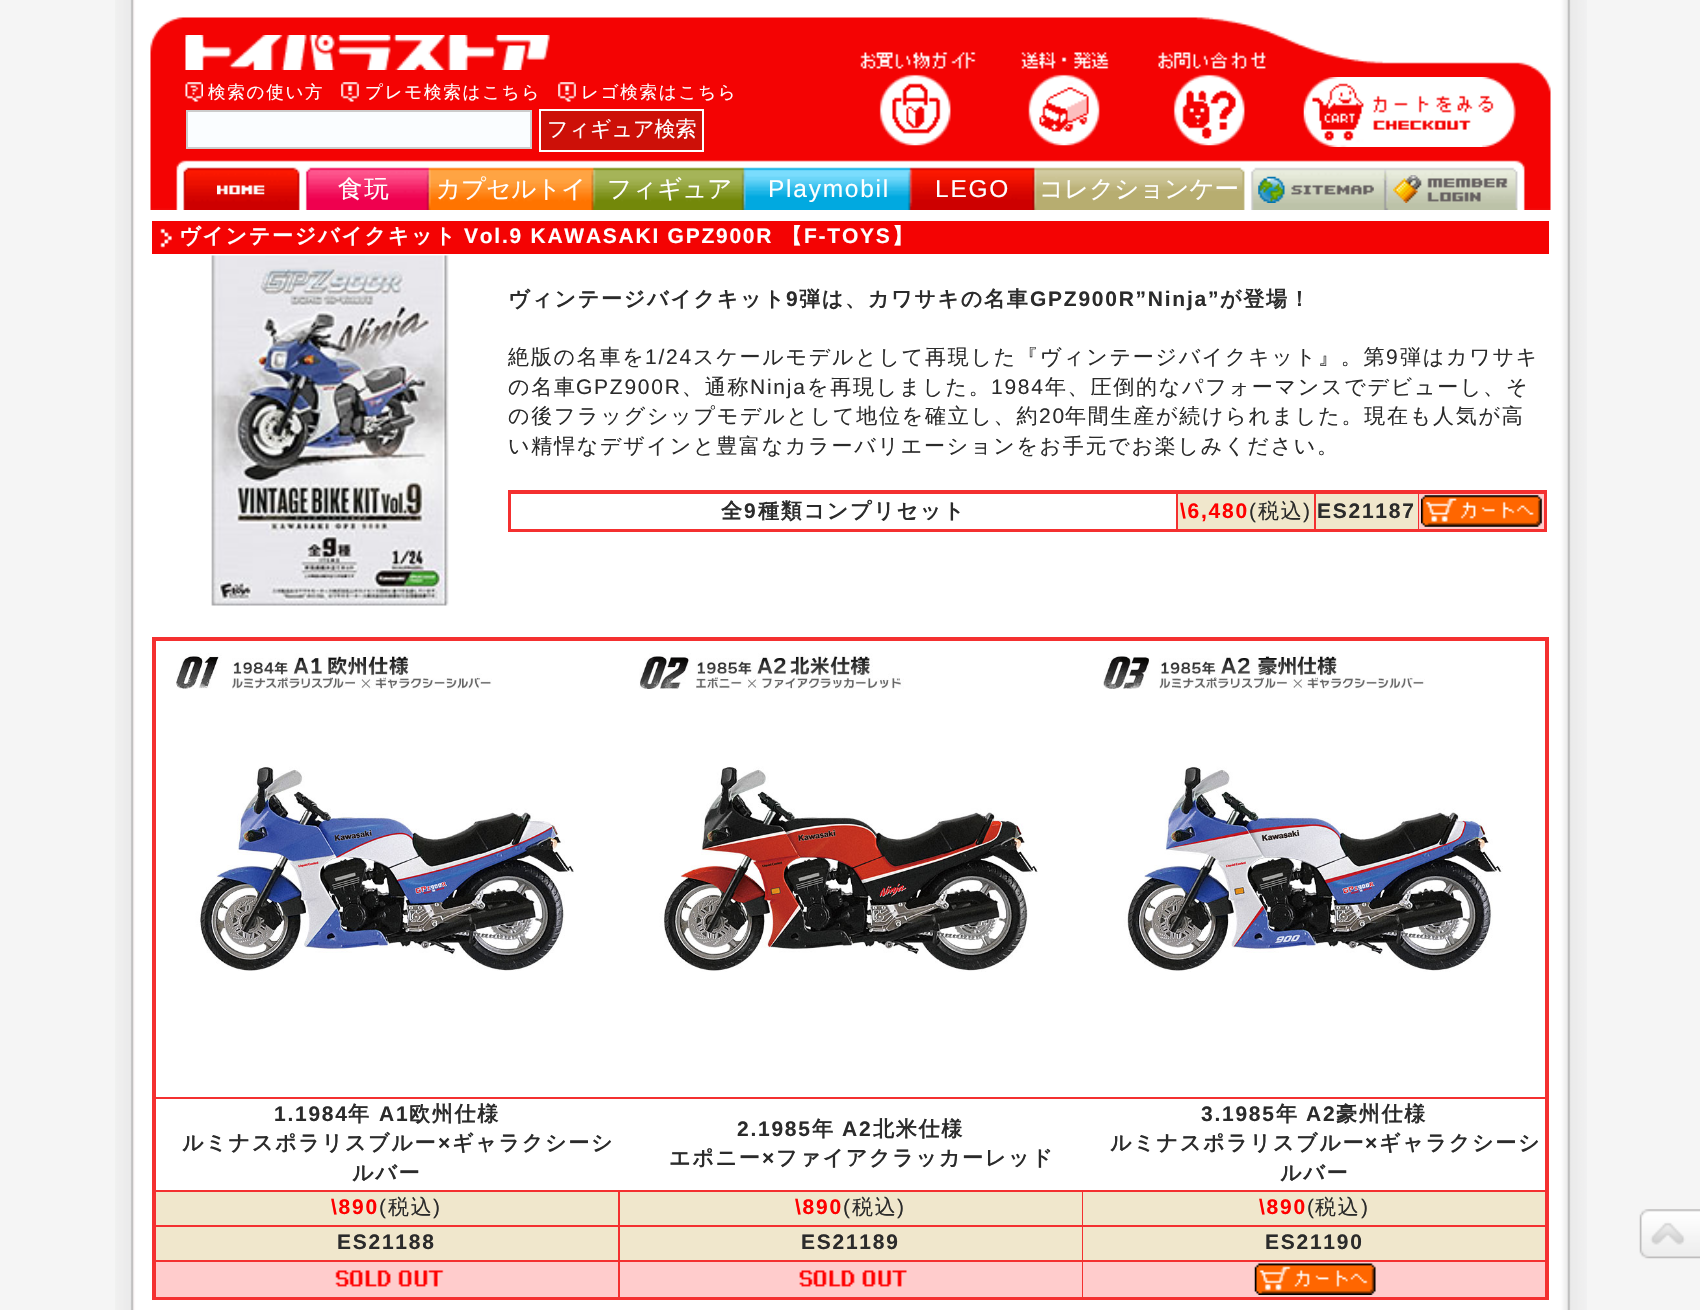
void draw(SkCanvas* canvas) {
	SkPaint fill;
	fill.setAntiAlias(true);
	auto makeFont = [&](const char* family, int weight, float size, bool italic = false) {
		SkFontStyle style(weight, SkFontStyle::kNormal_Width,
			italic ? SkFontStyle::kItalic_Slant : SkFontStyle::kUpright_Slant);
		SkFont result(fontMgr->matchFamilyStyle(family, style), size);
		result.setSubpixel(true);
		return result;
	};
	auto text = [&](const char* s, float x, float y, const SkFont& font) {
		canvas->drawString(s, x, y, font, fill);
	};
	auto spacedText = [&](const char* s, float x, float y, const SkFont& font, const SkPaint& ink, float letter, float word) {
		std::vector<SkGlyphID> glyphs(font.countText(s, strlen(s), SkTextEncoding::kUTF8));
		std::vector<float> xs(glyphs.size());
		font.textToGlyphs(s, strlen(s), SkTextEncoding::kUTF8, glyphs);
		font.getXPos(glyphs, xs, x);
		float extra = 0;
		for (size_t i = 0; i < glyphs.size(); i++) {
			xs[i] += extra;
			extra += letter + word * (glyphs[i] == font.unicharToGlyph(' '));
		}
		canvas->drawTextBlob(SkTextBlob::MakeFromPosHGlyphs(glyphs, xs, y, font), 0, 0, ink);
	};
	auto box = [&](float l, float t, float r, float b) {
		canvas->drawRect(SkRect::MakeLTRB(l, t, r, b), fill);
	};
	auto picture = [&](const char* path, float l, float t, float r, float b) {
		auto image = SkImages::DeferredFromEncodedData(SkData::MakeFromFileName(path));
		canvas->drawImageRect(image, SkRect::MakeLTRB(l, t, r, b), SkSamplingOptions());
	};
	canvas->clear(0xFFF5F5F5);
	picture("image0.png", 115, 0, 1587, 1310);
	picture("image1.png", 150, 17, 1551, 210);
	picture("image2.png", 185, 35, 550, 70);
	picture("image3.png", 185, 82, 203, 102);
	picture("image4.png", 341, 82, 359, 102);
	picture("image4.png", 558, 82, 576, 102);
	fill.setColor(0xFFFAFDFF);
	canvas->drawRect(SkRect::MakeLTRB(187, 111, 531, 148), fill);
	fill.setStyle(SkPaint::kStroke_Style);
	fill.setStrokeWidth(2);
	fill.setColor(0xFFCCCCCC);
	canvas->drawRect(SkRect::MakeLTRB(187, 111, 531, 148), fill);
	fill.setStyle(SkPaint::kFill_Style);
	fill.setColor(0xFFCD1008);
	canvas->drawRect(SkRect::MakeLTRB(540, 110, 703, 151), fill);
	fill.setStyle(SkPaint::kStroke_Style);
	fill.setColor(0xFFFFFFFF);
	canvas->drawRect(SkRect::MakeLTRB(540, 110, 703, 151), fill);
	picture("image5.png", 860, 52, 976, 146);
	picture("image6.png", 1021, 52, 1109, 146);
	picture("image7.png", 1158, 52, 1266, 146);
	picture("image8.png", 1303, 77, 1516, 147);
	picture("image9.png", 217, 185, 265, 195);
	picture("image10.png", 1258, 176, 1374, 203);
	picture("image11.png", 1393, 175, 1508, 203);
	fill.setStyle(SkPaint::kFill_Style);
	fill.setColor(0xFFF40303);
	box(152, 221, 1549, 254);
	picture("image12.png", 160, 228, 172, 248);
	picture("image13.png", 211, 255, 449, 606);
	fill.setColor(0xFFF43030);
	box(508, 490, 1547, 532);
	fill.setColor(0xFFFFFFFF);
	box(511, 494, 1176, 529);
	fill.setColor(0xFFF0E7CC);
	box(1178, 494, 1314, 529);
	box(1316, 494, 1418, 529);
	fill.setColor(0xFFFFCCCC);
	box(1419, 494, 1544, 529);
	picture("image14.png", 1421, 495, 1542, 527);
	fill.setColor(0xFFF43030);
	box(152, 637, 1549, 1300);
	fill.setColor(0xFFFFFFFF);
	box(156, 641, 1545, 1097);
	picture("image15.png", 176, 653, 574, 971);
	picture("image16.png", 639, 653, 1038, 972);
	picture("image17.png", 1103, 653, 1503, 972);
	box(156, 1099, 1545, 1190);
	fill.setColor(0xFFF0E7CC);
	box(156, 1192, 618, 1225);
	box(620, 1192, 1082, 1225);
	box(1083, 1192, 1545, 1225);
	box(156, 1227, 618, 1260);
	box(620, 1227, 1082, 1260);
	box(1083, 1227, 1545, 1260);
	fill.setColor(0xFFFFCCCC);
	box(156, 1262, 618, 1297);
	picture("image18.png", 335, 1270, 444, 1287);
	box(620, 1262, 1082, 1297);
	picture("image19.png", 799, 1270, 907, 1287);
	box(1083, 1262, 1545, 1297);
	picture("image20.png", 1254, 1263, 1376, 1295);
	picture("image21.png", 1639, 1209, 1700, 1259);
	auto font1 = makeFont("WenQuanYi Zen Hei", 500, 17.5f);
	fill.setColor(0xFFFFFFFF);
	spacedText("検索の使い方", 208, 98, font1, fill, 1.75f, 0);
	spacedText("プレモ検索はこちら", 365, 98, font1, fill, 1.75f, 0);
	spacedText("レゴ検索はこちら", 581, 98, font1, fill, 1.75f, 0);
	auto font2 = makeFont("WenQuanYi Zen Hei", 500, 21);
	text("フィギュア検索", 547, 136, font2);
	auto font3 = makeFont("WenQuanYi Zen Hei", 500, 24.5f);
	spacedText("食玩", 338, 197, font3, fill, 1.75f, 0);
	text("カプセルトイ", 436, 197, font3);
	text("フィギュア", 607, 197, font3);
	auto font4 = makeFont("Liberation Sans", 400, 24.5f);
	spacedText("Playmobil", 768, 197, font4, fill, 1.75f, 0);
	spacedText("LEGO", 935, 197, font4, fill, 1.75f, 0);
	text("コレクションケー", 1039, 197, font3);
	auto font5 = makeFont("WenQuanYi Zen Hei", 700, 21);
	spacedText("ヴインテージバイクキット", 179, 243, font5, fill, 1.75f, 0);
	auto font6 = makeFont("Liberation Sans", 700, 21);
	spacedText("Vol.9 KAWASAKI GPZ900R", 464, 243, font6, fill, 1.75f, 0);
	spacedText("【", 781, 243, font5, fill, 1.75f, 0);
	spacedText("F-TOYS", 804, 243, font6, fill, 1.75f, 0);
	spacedText("】", 892, 243, font5, fill, 1.75f, 0);
	fill.setColor(0xFF2B2B2B);
	spacedText("ヴィンテージバイクキット", 508, 306, font5, fill, 1.75f, 0);
	spacedText("9", 786, 306, font6, fill, 1.75f, 0);
	spacedText("弾は、カワサキの名車", 799, 306, font5, fill, 1.75f, 0);
	spacedText("GPZ900R”Ninja”", 1030, 306, font6, fill, 1.75f, 0);
	spacedText("が登場！", 1220, 306, font5, fill, 1.75f, 0);
	spacedText("絶版の名車を", 508, 364, font2, fill, 1.75f, 0);
	auto font7 = makeFont("Liberation Sans", 400, 21);
	spacedText("1/24", 645, 364, font7, fill, 1.75f, 0);
	spacedText("スケールモデルとして再現した『ヴィンテージバイクキット』。第", 693, 364, font2, fill, 1.75f, 0);
	spacedText("9", 1386, 364, font7, fill, 1.75f, 0);
	spacedText("弾はカワサキ", 1400, 364, font2, fill, 1.75f, 0);
	spacedText("の名車", 508, 394, font2, fill, 1.75f, 0);
	spacedText("GPZ900R", 576, 394, font7, fill, 1.75f, 0);
	spacedText("、通称", 682, 394, font2, fill, 1.75f, 0);
	spacedText("Ninja", 750, 394, font7, fill, 1.75f, 0);
	spacedText("を再現しました。", 807, 394, font2, fill, 1.75f, 0);
	spacedText("1984", 991, 394, font7, fill, 1.75f, 0);
	spacedText("年、圧倒的なパフォーマンスでデビューし、そ", 1045, 394, font2, fill, 1.75f, 0);
	spacedText("の後フラッグシップモデルとして地位を確立し、約", 508, 423, font2, fill, 1.75f, 0);
	spacedText("20", 1039, 423, font7, fill, 1.75f, 0);
	spacedText("年間生産が続けられました。現在も人気が高", 1065, 423, font2, fill, 1.75f, 0);
	spacedText("い精悍なデザインと豊富なカラーバリエーションをお手元でお楽しみください。", 508, 453, font2, fill, 1.75f, 0);
	spacedText("全", 721, 518, font5, fill, 1.75f, 0);
	spacedText("9", 744, 518, font6, fill, 1.75f, 0);
	spacedText("種類コンプリセット", 758, 518, font5, fill, 1.75f, 0);
	fill.setColor(0xFFFF0000);
	spacedText("\\6,480", 1180, 518, font6, fill, 1.75f, 0);
	fill.setColor(0xFF2B2B2B);
	spacedText("(", 1249, 518, font7, fill, 1.75f, 0);
	spacedText("税込", 1258, 518, font2, fill, 1.75f, 0);
	spacedText(")", 1303, 518, font7, fill, 1.75f, 0);
	spacedText("ES21187", 1317, 518, font6, fill, 1.75f, 0);
	spacedText("1.1984", 274, 1121, font6, fill, 1.75f, 0);
	spacedText("年", 348, 1121, font5, fill, 1.75f, 0);
	spacedText("A1", 379, 1121, font6, fill, 1.75f, 0);
	spacedText("欧州仕様", 409, 1121, font5, fill, 1.75f, 0);
	spacedText("ルミナスポラリスブルー", 182, 1150, font5, fill, 1.75f, 0);
	spacedText("×", 438, 1150, font6, fill, 1.75f, 0);
	spacedText("ギャラクシーシ", 452, 1150, font5, fill, 1.75f, 0);
	spacedText("ルバー", 352, 1180, font5, fill, 1.75f, 0);
	spacedText("2.1985", 737, 1136, font6, fill, 1.75f, 0);
	spacedText("年", 812, 1136, font5, fill, 1.75f, 0);
	spacedText("A2", 842, 1136, font6, fill, 1.75f, 0);
	spacedText("北米仕様", 873, 1136, font5, fill, 1.75f, 0);
	spacedText("エポニー", 669, 1165, font5, fill, 1.75f, 0);
	spacedText("×", 762, 1165, font6, fill, 1.75f, 0);
	spacedText("ファイアクラッカーレッド", 776, 1165, font5, fill, 1.75f, 0);
	spacedText("3.1985", 1201, 1121, font6, fill, 1.75f, 0);
	spacedText("年", 1276, 1121, font5, fill, 1.75f, 0);
	spacedText("A2", 1306, 1121, font6, fill, 1.75f, 0);
	spacedText("豪州仕様", 1336, 1121, font5, fill, 1.75f, 0);
	spacedText("ルミナスポラリスブルー", 1110, 1150, font5, fill, 1.75f, 0);
	spacedText("×", 1365, 1150, font6, fill, 1.75f, 0);
	spacedText("ギャラクシーシ", 1379, 1150, font5, fill, 1.75f, 0);
	spacedText("ルバー", 1280, 1180, font5, fill, 1.75f, 0);
	fill.setColor(0xFFFF0000);
	spacedText("\\890", 331, 1214, font6, fill, 1.75f, 0);
	fill.setColor(0xFF2B2B2B);
	spacedText("(", 379, 1214, font7, fill, 1.75f, 0);
	spacedText("税込", 388, 1214, font2, fill, 1.75f, 0);
	spacedText(")", 433, 1214, font7, fill, 1.75f, 0);
	fill.setColor(0xFFFF0000);
	spacedText("\\890", 795, 1214, font6, fill, 1.75f, 0);
	fill.setColor(0xFF2B2B2B);
	spacedText("(", 843, 1214, font7, fill, 1.75f, 0);
	spacedText("税込", 852, 1214, font2, fill, 1.75f, 0);
	spacedText(")", 897, 1214, font7, fill, 1.75f, 0);
	fill.setColor(0xFFFF0000);
	spacedText("\\890", 1259, 1214, font6, fill, 1.75f, 0);
	fill.setColor(0xFF2B2B2B);
	spacedText("(", 1307, 1214, font7, fill, 1.75f, 0);
	spacedText("税込", 1315, 1214, font2, fill, 1.75f, 0);
	spacedText(")", 1361, 1214, font7, fill, 1.75f, 0);
	spacedText("ES21188", 337, 1249, font6, fill, 1.75f, 0);
	spacedText("ES21189", 801, 1249, font6, fill, 1.75f, 0);
	spacedText("ES21190", 1265, 1249, font6, fill, 1.75f, 0);
}
